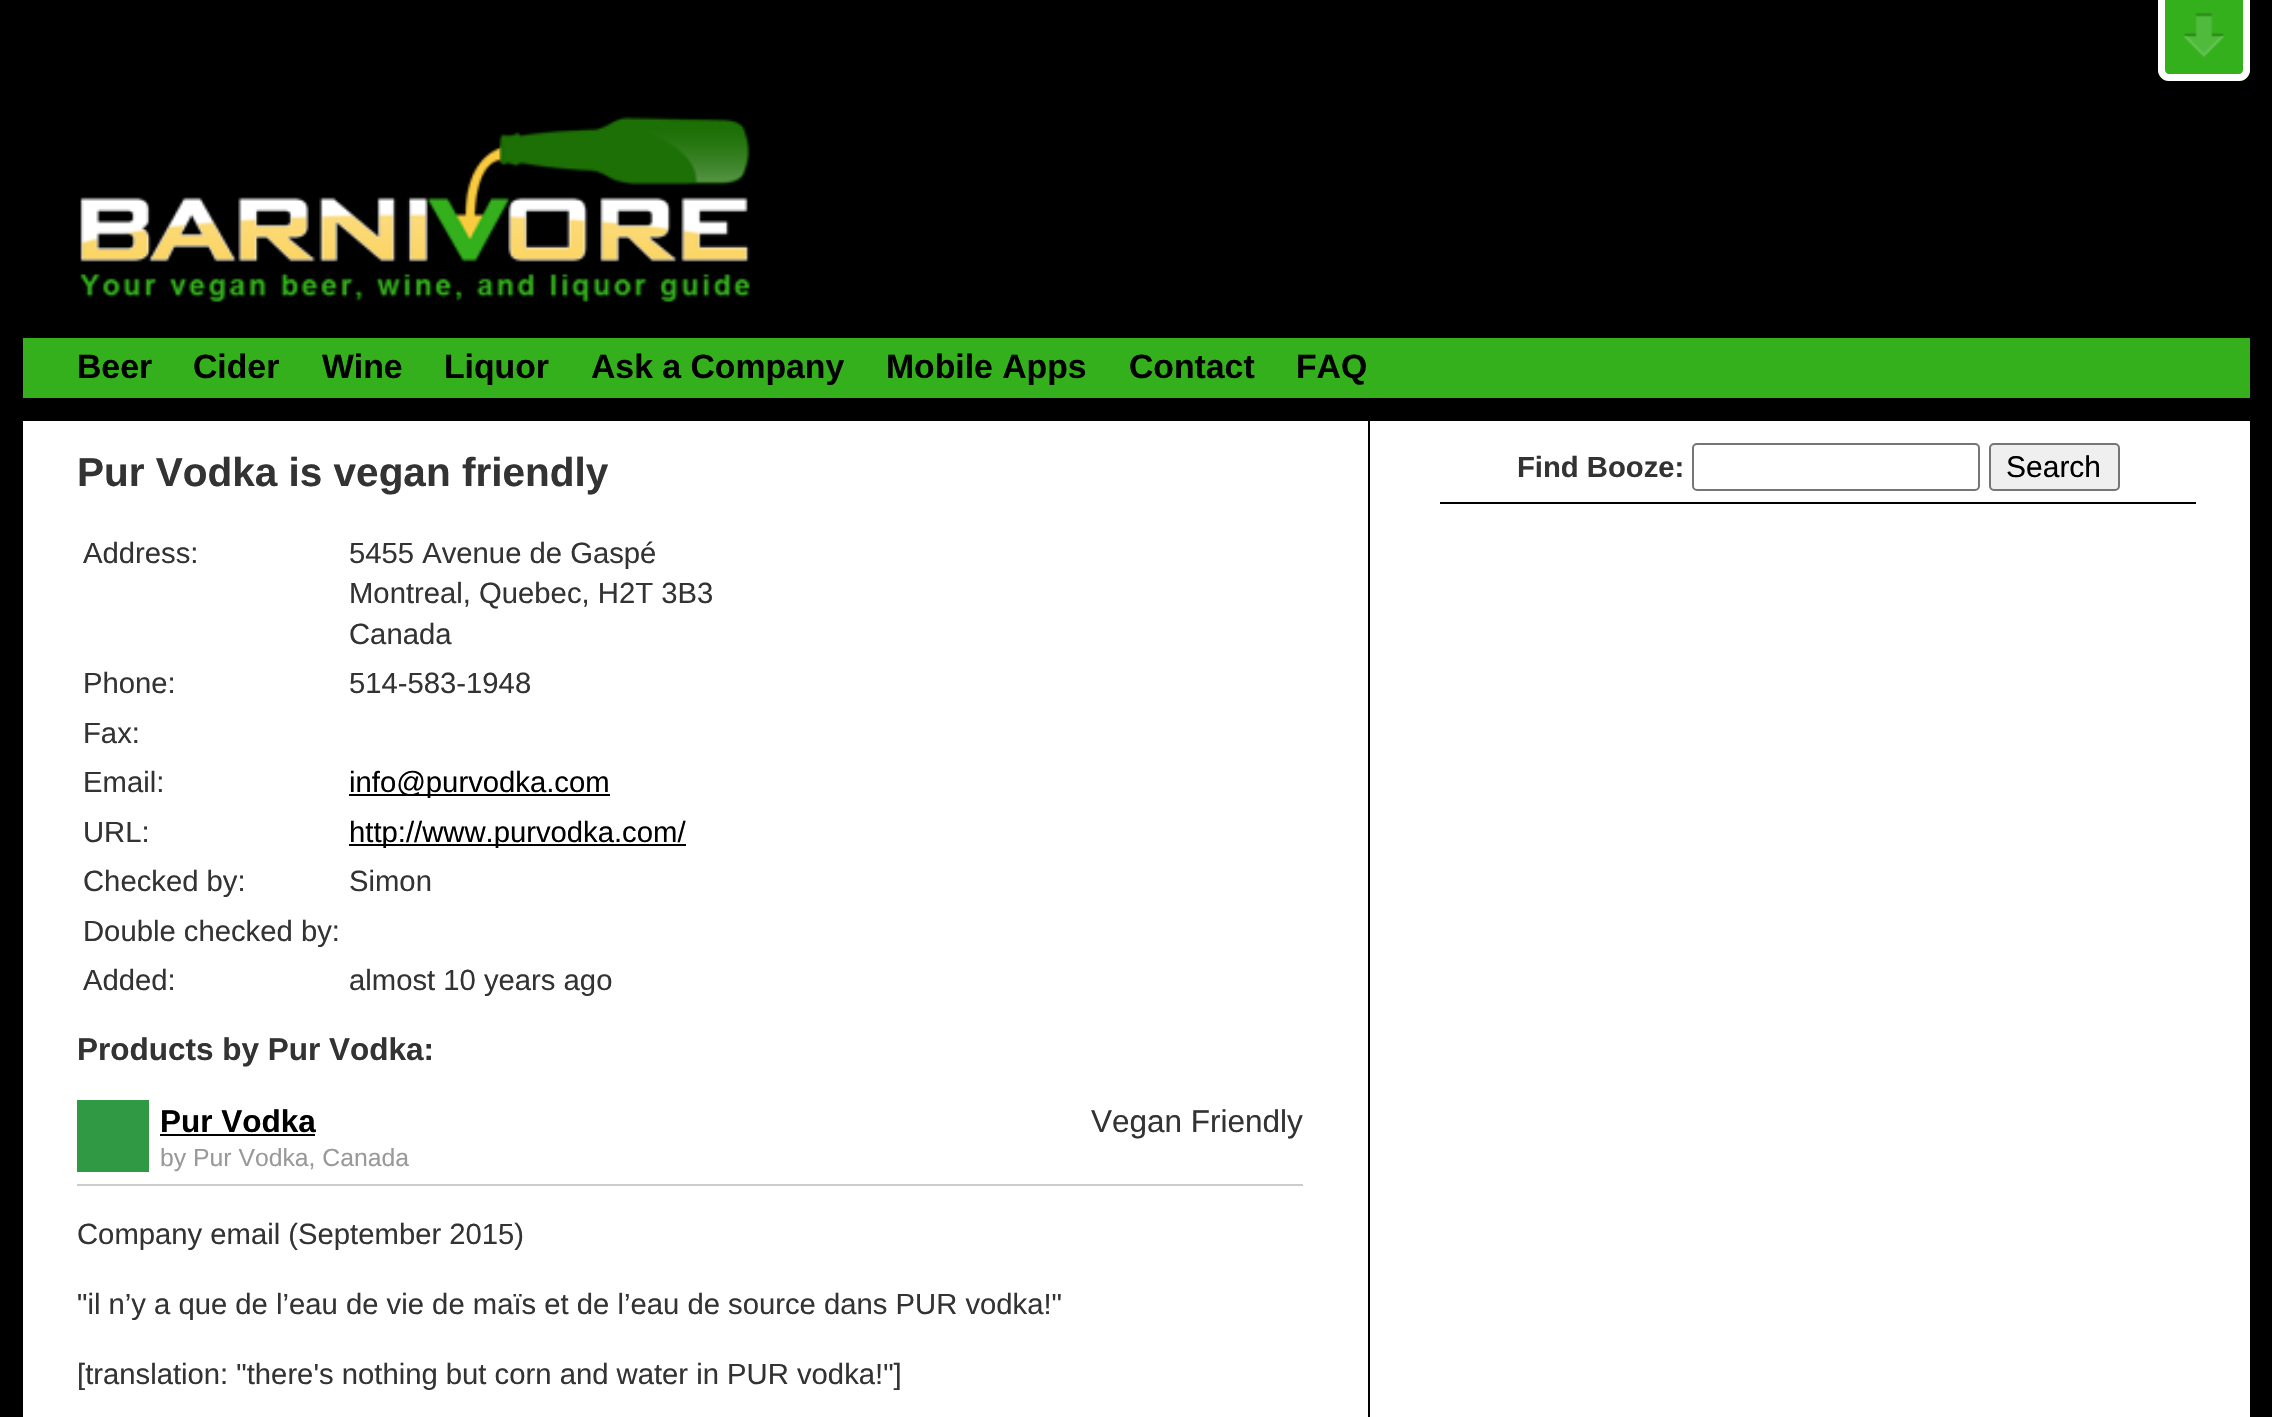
void draw(SkCanvas* canvas) {
	SkPaint fill;
	fill.setAntiAlias(true);
	auto makeFont = [&](const char* family, int weight, float size, bool italic = false) {
		SkFontStyle style(weight, SkFontStyle::kNormal_Width,
			italic ? SkFontStyle::kItalic_Slant : SkFontStyle::kUpright_Slant);
		SkFont result(fontMgr->matchFamilyStyle(family, style), size);
		result.setSubpixel(true);
		return result;
	};
	auto text = [&](const char* s, float x, float y, const SkFont& font) {
		canvas->drawString(s, x, y, font, fill);
	};
	auto box = [&](float l, float t, float r, float b) {
		canvas->drawRect(SkRect::MakeLTRB(l, t, r, b), fill);
	};
	auto picture = [&](const char* path, float l, float t, float r, float b) {
		auto image = SkImages::DeferredFromEncodedData(SkData::MakeFromFileName(path));
		canvas->drawImageRect(image, SkRect::MakeLTRB(l, t, r, b), SkSamplingOptions());
	};
	canvas->clear(0xFF000000);
	fill.setColor(0xFF34B01C);
	canvas->drawPath(SkPathBuilder().moveTo(2158, -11).lineTo(2250, -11).lineTo(2250, 70).cubicTo(2250, 76, 2245, 81, 2239, 81).lineTo(2169, 81).cubicTo(2163, 81, 2158, 76, 2158, 70).close().detach(), fill);
	picture("image0.png", 2184, 12, 2224, 57);
	fill.setStyle(SkPaint::kStroke_Style);
	fill.setStrokeWidth(7);
	fill.setColor(0xFFFFFFFF);
	canvas->drawPath(SkPathBuilder().moveTo(2161.5f, -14.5f).lineTo(2246.5f, -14.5f).lineTo(2246.5f, 70).cubicTo(2246.5f, 74, 2243, 77.5f, 2239, 77.5f).lineTo(2169, 77.5f).cubicTo(2165, 77.5f, 2161.5f, 74, 2161.5f, 70).close().detach(), fill);
	picture("image1.png", 80, 116, 750, 303);
	fill.setStyle(SkPaint::kFill_Style);
	fill.setColor(0xFF34B01C);
	box(23, 338, 2250, 398);
	fill.setColor(0xFFFFFFFF);
	box(23, 421, 2250, 1417);
	fill.setColor(0xFF000000);
	box(1368, 421, 1370, 1417);
	box(349, 794, 610, 796);
	box(349, 844, 686, 846);
	fill.setColor(0xFFCCCCCC);
	box(77, 1184, 1303, 1186);
	fill.setColor(0xFF309943);
	box(77, 1100, 149, 1172);
	fill.setColor(0xFF000000);
	box(160, 1134, 315, 1136);
	box(1440, 502, 2196, 504);
	fill.setStyle(SkPaint::kStroke_Style);
	fill.setStrokeWidth(2);
	fill.setColor(0xFF767676);
	canvas->drawRoundRect(SkRect::MakeLTRB(1693, 444, 1979, 490), 4, 4, fill);
	fill.setStyle(SkPaint::kFill_Style);
	fill.setColor(0xFFEFEFEF);
	canvas->drawRoundRect(SkRect::MakeLTRB(1990, 444, 2119, 490), 4, 4, fill);
	fill.setStyle(SkPaint::kStroke_Style);
	fill.setColor(0xFF767676);
	canvas->drawRoundRect(SkRect::MakeLTRB(1990, 444, 2119, 490), 4, 4, fill);
	auto font1 = makeFont("Liberation Sans", 700, 33.75f);
	fill.setStyle(SkPaint::kFill_Style);
	fill.setColor(0xFF000000);
	text("Beer", 77, 378, font1);
	text("Cider", 193, 378, font1);
	text("Wine", 322, 378, font1);
	text("Liquor", 444, 378, font1);
	text("Ask a Company", 591, 378, font1);
	text("Mobile Apps", 886, 378, font1);
	text("Contact", 1129, 378, font1);
	text("FAQ", 1296, 378, font1);
	auto font2 = makeFont("Liberation Sans", 700, 40.5f);
	fill.setColor(0xFF333333);
	text("Pur Vodka is vegan friendly", 77, 486, font2);
	auto font3 = makeFont("Liberation Sans", 400, 29.25f);
	text("Address:", 83, 563, font3);
	text("5455 Avenue de Gaspé", 349, 563, font3);
	text("Montreal, Quebec, H2T 3B3", 349, 603, font3);
	text("Canada", 349, 644, font3);
	text("Phone:", 83, 693, font3);
	text("514-583-1948", 349, 693, font3);
	text("Fax:", 83, 743, font3);
	text("Email:", 83, 792, font3);
	fill.setColor(0xFF000000);
	text("info@purvodka.com", 349, 792, font3);
	fill.setColor(0xFF333333);
	text("URL:", 83, 842, font3);
	fill.setColor(0xFF000000);
	text("http://www.purvodka.com/", 349, 842, font3);
	fill.setColor(0xFF333333);
	text("Checked by:", 83, 891, font3);
	text("Simon", 349, 891, font3);
	text("Double checked by:", 83, 941, font3);
	text("Added:", 83, 990, font3);
	text("almost 10 years ago", 349, 990, font3);
	auto font4 = makeFont("Liberation Sans", 700, 31.5f);
	text("Products by Pur Vodka:", 77, 1060, font4);
	fill.setColor(0xFF000000);
	text("Pur Vodka", 160, 1132, font4);
	auto font5 = makeFont("Liberation Sans", 400, 24.75f);
	fill.setColor(0xFF999999);
	text("by Pur Vodka, Canada", 160, 1166, font5);
	auto font6 = makeFont("Liberation Sans", 400, 31.5f);
	fill.setColor(0xFF333333);
	text("Vegan Friendly", 1091, 1132, font6);
	text("Company email (September 2015)", 77, 1244, font3);
	text("\"il n’y a que de l’eau de vie de maïs et de l’eau de source dans PUR vodka!\"", 77, 1314, font3);
	text("[translation: \"there's nothing but corn and water in PUR vodka!\"]", 77, 1384, font3);
	auto font7 = makeFont("Liberation Sans", 700, 29.25f);
	text("Find Booze:", 1517, 477, font7);
	auto font8 = makeFont("Liberation Sans", 400, 30);
	fill.setColor(0xFF000000);
	text("Search", 2006, 477, font8);
}
